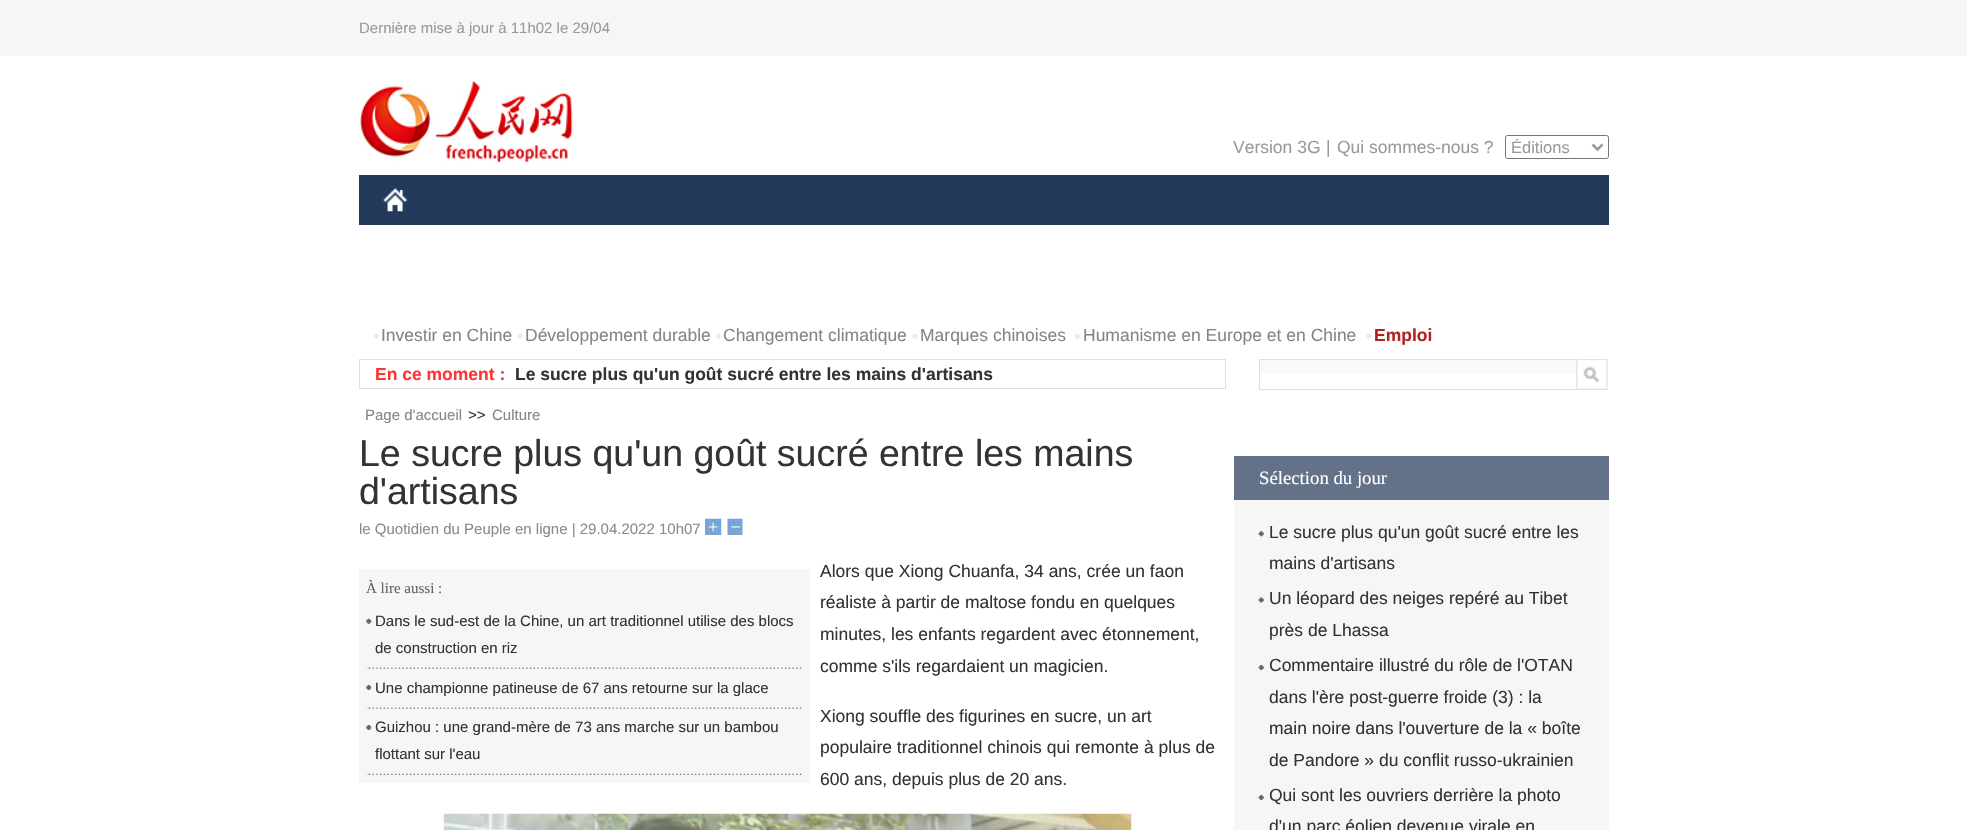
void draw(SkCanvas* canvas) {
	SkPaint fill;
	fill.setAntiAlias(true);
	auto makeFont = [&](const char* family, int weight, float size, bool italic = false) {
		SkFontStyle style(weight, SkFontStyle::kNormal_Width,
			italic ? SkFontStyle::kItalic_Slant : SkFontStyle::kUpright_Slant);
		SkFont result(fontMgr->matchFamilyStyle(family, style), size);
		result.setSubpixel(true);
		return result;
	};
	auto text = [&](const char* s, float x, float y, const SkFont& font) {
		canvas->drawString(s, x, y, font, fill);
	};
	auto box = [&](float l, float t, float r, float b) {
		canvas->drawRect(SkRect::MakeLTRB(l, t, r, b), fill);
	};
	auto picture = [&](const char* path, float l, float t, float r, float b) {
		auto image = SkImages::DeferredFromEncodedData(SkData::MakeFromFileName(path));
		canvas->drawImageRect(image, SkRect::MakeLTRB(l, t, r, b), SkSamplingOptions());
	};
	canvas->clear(0xFFFFFFFF);
	fill.setColor(0xFFF6F6F6);
	box(0, 0, 1967, 56);
	picture("image0.png", 359, 81, 573, 163);
	fill.setStyle(SkPaint::kStroke_Style);
	fill.setStrokeWidth(1);
	fill.setColor(0xFF767676);
	canvas->drawRoundRect(SkRect::MakeLTRB(1505.5f, 135.5f, 1608.5f, 158.5f), 2, 2, fill);
	fill.setStrokeWidth(2.5f);
	fill.setColor(0xFF999999);
	canvas->drawPath(SkPathBuilder().moveTo(1592.5f, 144.5f).lineTo(1597.5f, 149.5f).lineTo(1602.5f, 144.5f).detach(), fill);
	fill.setStyle(SkPaint::kFill_Style);
	fill.setColor(0xFF243A5B);
	box(359, 175, 1609, 225);
	picture("image1.png", 383, 187, 408, 212);
	picture("image2.png", 373, 333, 379, 339);
	picture("image3.png", 517, 333, 523, 339);
	picture("image4.png", 716, 333, 722, 339);
	picture("image3.png", 912, 333, 918, 339);
	picture("image5.png", 1075, 333, 1080, 339);
	picture("image4.png", 1366, 333, 1372, 339);
	fill.setStyle(SkPaint::kStroke_Style);
	fill.setStrokeWidth(1);
	fill.setColor(0xFFDFDFDF);
	canvas->drawRect(SkRect::MakeLTRB(359.5f, 359.5f, 1225.5f, 388.5f), fill);
	fill.setStyle(SkPaint::kFill_Style);
	fill.setColor(0xFFF9F9F9);
	box(1260, 360, 1576, 374);
	fill.setColor(0xFFDFDFDF);
	box(1259, 359, 1576, 360);
	box(1259, 389, 1576, 390);
	box(1259, 359, 1260, 390);
	picture("image6.png", 1576, 359, 1608, 390);
	picture("image7.png", 705, 518, 722, 535);
	picture("image8.png", 727, 518, 743, 535);
	fill.setColor(0xFFF6F6F6);
	box(359, 569, 810, 783);
	picture("image9.png", 366, 667, 802, 669);
	picture("image10.png", 366, 618, 372, 624);
	picture("image9.png", 366, 707, 802, 709);
	picture("image11.png", 366, 685, 372, 690);
	picture("image12.png", 366, 773, 802, 775);
	picture("image11.png", 366, 725, 372, 730);
	picture("image13.png", 443, 813, 1132, 830);
	box(1234, 500, 1609, 830);
	fill.setColor(0xFF637289);
	box(1234, 456, 1609, 500);
	picture("image14.png", 1258, 531, 1264, 537);
	picture("image15.png", 1258, 597, 1264, 603);
	picture("image16.png", 1258, 665, 1264, 670);
	picture("image16.png", 1258, 795, 1264, 800);
	auto font1 = makeFont("Liberation Sans", 400, 15);
	fill.setColor(0xFF999999);
	text("Dernière mise à jour à 11h02 le 29/04", 359, 33, font1);
	auto font2 = makeFont("Liberation Sans", 400, 17.5f);
	text("Version 3G", 1233, 153, font2);
	text("|", 1326, 153, font2);
	text("Qui sommes-nous ?", 1337, 153, font2);
	auto font3 = makeFont("Liberation Sans", 400, 16.5f);
	text("Éditions", 1511, 153, font3);
	fill.setColor(0xFF858585);
	text("Investir en Chine", 381, 341, font2);
	text("Développement durable", 525, 341, font2);
	text("Changement climatique", 723, 341, font2);
	text("Marques chinoises", 920, 341, font2);
	text("Humanisme en Europe et en Chine", 1083, 341, font2);
	auto font4 = makeFont("Liberation Sans", 700, 17.5f);
	fill.setColor(0xFFB22222);
	text("Emploi", 1374, 341, font4);
	fill.setColor(0xFFFF3333);
	text("En ce moment :", 375, 380, font4);
	fill.setColor(0xFF333333);
	text("Le sucre plus qu'un goût sucré entre les mains d'artisans", 515, 380, font4);
	fill.setColor(0xFF858585);
	text("Page d'accueil", 365, 420, font1);
	fill.setColor(0xFF333333);
	text(">>", 468, 420, font1);
	fill.setColor(0xFF858585);
	text("Culture", 492, 420, font1);
	auto font5 = makeFont("Liberation Sans", 400, 37.5f);
	fill.setColor(0xFF333333);
	text("Le sucre plus qu'un goût sucré entre les mains", 359, 466, font5);
	text("d'artisans", 359, 504, font5);
	fill.setColor(0xFF8B8B8B);
	text("le Quotidien du Peuple en ligne | 29.04.2022 10h07", 359, 534, font1);
	auto font6 = makeFont("Liberation Serif", 400, 15);
	fill.setColor(0xFF616161);
	text("À lire aussi :", 366, 593, font6);
	fill.setColor(0xFF333333);
	text("Dans le sud-est de la Chine, un art traditionnel utilise des blocs", 375, 626, font1);
	text("de construction en riz", 375, 653, font1);
	text("Une championne patineuse de 67 ans retourne sur la glace", 375, 693, font1);
	text("Guizhou : une grand-mère de 73 ans marche sur un bambou", 375, 732, font1);
	text("flottant sur l'eau", 375, 759, font1);
	text("Alors que Xiong Chuanfa, 34 ans, crée un faon", 820, 577, font2);
	text("réaliste à partir de maltose fondu en quelques", 820, 608, font2);
	text("minutes, les enfants regardent avec étonnement,", 820, 640, font2);
	text("comme s'ils regardaient un magicien.", 820, 672, font2);
	text("Xiong souffle des figurines en sucre, un art", 820, 722, font2);
	text("populaire traditionnel chinois qui remonte à plus de", 820, 753, font2);
	text("600 ans, depuis plus de 20 ans.", 820, 785, font2);
	auto font7 = makeFont("Liberation Serif", 400, 18.75f);
	fill.setColor(0xFFFFFFFF);
	text("Sélection du jour", 1259, 484, font7);
	fill.setColor(0xFF333333);
	text("Le sucre plus qu'un goût sucré entre les", 1269, 538, font2);
	text("mains d'artisans", 1269, 569, font2);
	text("Un léopard des neiges repéré au Tibet", 1269, 604, font2);
	text("près de Lhassa", 1269, 636, font2);
	text("Commentaire illustré du rôle de l'OTAN", 1269, 671, font2);
	text("dans l'ère post-guerre froide (3) : la", 1269, 703, font2);
	text("main noire dans l'ouverture de la « boîte", 1269, 734, font2);
	text("de Pandore » du conflit russo-ukrainien", 1269, 766, font2);
	text("Qui sont les ouvriers derrière la photo", 1269, 801, font2);
	text("d'un parc éolien devenue virale en", 1269, 832, font2);
}
